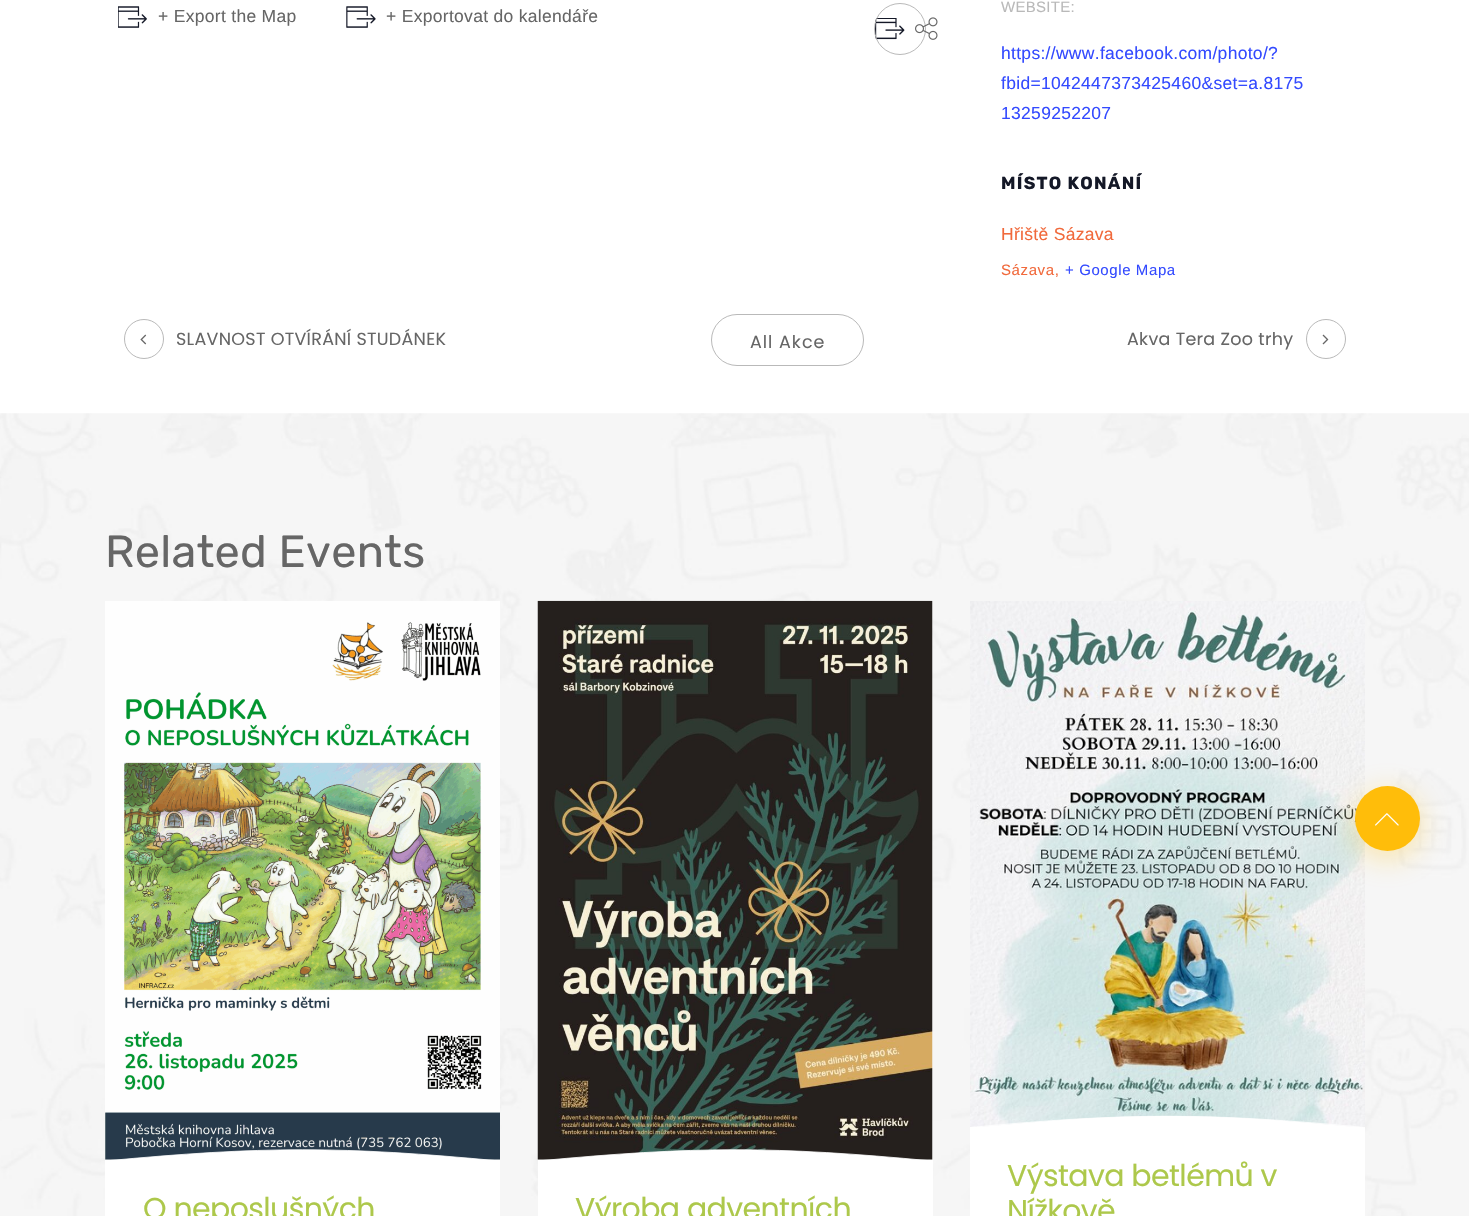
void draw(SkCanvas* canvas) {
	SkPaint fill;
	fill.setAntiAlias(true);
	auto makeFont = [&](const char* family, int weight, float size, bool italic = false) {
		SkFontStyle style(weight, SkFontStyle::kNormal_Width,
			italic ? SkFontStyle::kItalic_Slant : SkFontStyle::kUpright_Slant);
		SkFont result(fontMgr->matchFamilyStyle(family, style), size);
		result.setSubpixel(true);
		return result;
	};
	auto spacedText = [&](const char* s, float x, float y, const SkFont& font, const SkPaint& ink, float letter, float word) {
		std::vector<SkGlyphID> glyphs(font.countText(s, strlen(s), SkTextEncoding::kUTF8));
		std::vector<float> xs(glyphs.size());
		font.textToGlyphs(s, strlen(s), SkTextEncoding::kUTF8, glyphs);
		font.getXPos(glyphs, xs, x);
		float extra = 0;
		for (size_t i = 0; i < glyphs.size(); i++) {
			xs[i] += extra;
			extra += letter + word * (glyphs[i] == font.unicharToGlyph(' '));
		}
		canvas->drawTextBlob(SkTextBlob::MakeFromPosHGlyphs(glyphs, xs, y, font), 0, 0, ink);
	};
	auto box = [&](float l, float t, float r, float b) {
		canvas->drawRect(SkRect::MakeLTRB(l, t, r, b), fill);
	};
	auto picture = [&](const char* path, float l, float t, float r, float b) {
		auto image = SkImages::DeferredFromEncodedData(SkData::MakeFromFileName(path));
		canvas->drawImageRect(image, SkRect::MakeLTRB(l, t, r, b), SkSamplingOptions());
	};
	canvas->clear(0xFFFFFFFF);
	picture("image0.png", 118, 6, 147, 28);
	picture("image1.png", 346, 6, 376, 28);
	picture("image2.png", 875, 18, 905, 40);
	fill.setStyle(SkPaint::kStroke_Style);
	fill.setStrokeWidth(1);
	fill.setColor(0xFFB9B9B9);
	canvas->drawCircle(900, 29, 25.5f, fill);
	picture("image3.png", 915, 17, 938, 40);
	canvas->drawCircle(144, 339, 19.5f, fill);
	picture("image4.png", 140, 334, 147, 345);
	canvas->drawRoundRect(SkRect::MakeLTRB(711.5f, 314.5f, 863.5f, 365.5f), 25.5f, 25.5f, fill);
	canvas->drawCircle(1326, 339, 19.5f, fill);
	picture("image5.png", 1322, 334, 1329, 345);
	picture("image6.png", 0, 413, 1469, 1216);
	picture("image7.png", 105, 601, 500, 1160);
	fill.setStyle(SkPaint::kFill_Style);
	fill.setColor(0xFFFFFFFF);
	box(105, 1160, 500, 1216);
	canvas->drawPath(SkPathBuilder().moveTo(105, 1161).cubicTo(263, 1146, 342, 1146, 500, 1161).close().detach(), fill);
	canvas->save();
	canvas->clipRect(SkRect::MakeLTRB(105, 1146, 500, 1161));
	fill.setStyle(SkPaint::kStroke_Style);
	fill.setStrokeWidth(0.8f);
	canvas->drawPath(SkPathBuilder().moveTo(105, 1161).cubicTo(263, 1146, 342, 1146, 500, 1161).close().detach(), fill);
	canvas->restore();
	picture("image8.png", 537, 600, 933, 1160);
	fill.setStyle(SkPaint::kFill_Style);
	box(538, 1160, 933, 1216);
	canvas->drawPath(SkPathBuilder().moveTo(538, 1161).cubicTo(695, 1146, 774, 1146, 932, 1161).close().detach(), fill);
	canvas->save();
	canvas->clipRect(SkRect::MakeLTRB(538, 1146, 933, 1161));
	fill.setStyle(SkPaint::kStroke_Style);
	canvas->drawPath(SkPathBuilder().moveTo(537.5f, 1161).cubicTo(695.5f, 1146, 774.5f, 1146, 932.5f, 1161).close().detach(), fill);
	canvas->restore();
	picture("image9.png", 970, 601, 1365, 1127);
	fill.setStyle(SkPaint::kFill_Style);
	box(970, 1128, 1365, 1216);
	canvas->drawPath(SkPathBuilder().moveTo(970, 1128).cubicTo(1128, 1112, 1207, 1112, 1365, 1128).close().detach(), fill);
	fill.setStyle(SkPaint::kStroke_Style);
	canvas->drawPath(SkPathBuilder().moveTo(970, 1127.5f).cubicTo(1128, 1112.5f, 1207, 1112.5f, 1365, 1127.5f).close().detach(), fill);
	fill.setStyle(SkPaint::kFill_Style);
	fill.setColor(0x59FFBD0A);
	fill.setMaskFilter(SkMaskFilter::MakeBlur(kNormal_SkBlurStyle, 15.5f));
	canvas->drawRoundRect(SkRect::MakeLTRB(1355, 793, 1420, 858), 32.5f, 32.5f, fill);
	fill.setMaskFilter(nullptr);
	fill.setColor(0xFFFFBD0A);
	canvas->drawCircle(1387.5f, 818.5f, 32.5f, fill);
	picture("image10.png", 1375, 813, 1399, 826);
	auto font1 = makeFont("Liberation Sans", 400, 17.5f);
	fill.setColor(0xFF666666);
	spacedText("+ Export the Map", 158, 22, font1, fill, 0.3f, 0);
	spacedText("+ Exportovat do kalendáře", 386, 22, font1, fill, 0.3f, 0);
	auto font2 = makeFont("Liberation Sans", 400, 15);
	fill.setColor(0xFFB9B9B9);
	spacedText("WEBSITE:", 1001, 12, font2, fill, 0.3f, 0);
	fill.setColor(0xFF334AFF);
	spacedText("https://www.facebook.com/photo/?", 1001, 59, font1, fill, 0.3f, 0);
	spacedText("fbid=1042447373425460&set=a.8175", 1001, 89, font1, fill, 0.3f, 0);
	spacedText("13259252207", 1001, 119, font1, fill, 0.3f, 0);
	auto font3 = makeFont("Rubik", 700, 17.5f);
	fill.setColor(0xFF141827);
	spacedText("MÍSTO KONÁNÍ", 1001, 189, font3, fill, 1.25f, 0);
	fill.setColor(0xFFF1693B);
	spacedText("Hřiště Sázava", 1001, 240, font1, fill, 0.3f, 0);
	spacedText("Sázava,", 1001, 275, font2, fill, 0.6f, 0);
	fill.setColor(0xFF334AFF);
	spacedText("+ Google Mapa", 1065, 275, font2, fill, 0.6f, 0);
	auto font4 = makeFont("Poppins", 400, 17.5f);
	fill.setColor(0xFF666666);
	spacedText("SLAVNOST OTVÍRÁNÍ STUDÁNEK", 176, 345, font4, fill, 0.3f, 0);
	spacedText("All Akce", 750, 348, font4, fill, 1, 0);
	spacedText("Akva Tera Zoo trhy", 1127, 345, font4, fill, 0.3f, 0);
	auto font5 = makeFont("Rubik", 400, 45);
	spacedText("Related Events", 105, 567, font5, fill, 0.3f, 0);
	auto font6 = makeFont("Poppins", 400, 30);
	fill.setColor(0xFFADC84B);
	spacedText("O neposlušných", 143, 1219, font6, fill, -0.6f, 0);
	spacedText("Výroba adventních", 575, 1219, font6, fill, -0.6f, 0);
	spacedText("Výstava betlémů v", 1007, 1186, font6, fill, -0.6f, 0);
	spacedText("Nížkově", 1007, 1221, font6, fill, -0.6f, 0);
}
